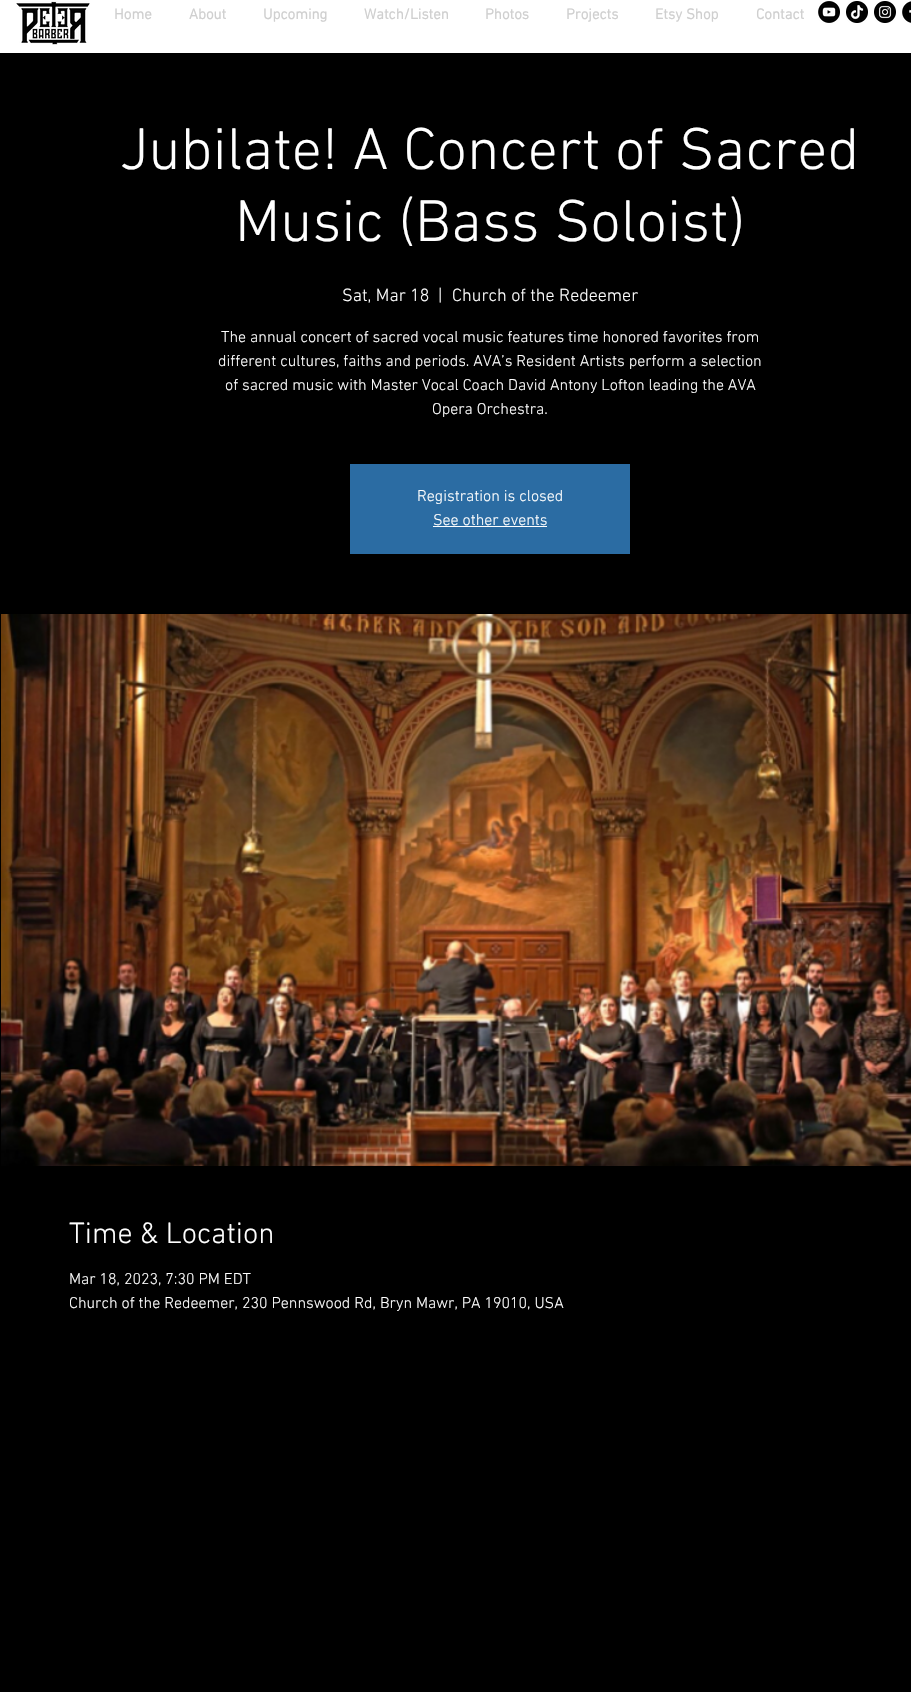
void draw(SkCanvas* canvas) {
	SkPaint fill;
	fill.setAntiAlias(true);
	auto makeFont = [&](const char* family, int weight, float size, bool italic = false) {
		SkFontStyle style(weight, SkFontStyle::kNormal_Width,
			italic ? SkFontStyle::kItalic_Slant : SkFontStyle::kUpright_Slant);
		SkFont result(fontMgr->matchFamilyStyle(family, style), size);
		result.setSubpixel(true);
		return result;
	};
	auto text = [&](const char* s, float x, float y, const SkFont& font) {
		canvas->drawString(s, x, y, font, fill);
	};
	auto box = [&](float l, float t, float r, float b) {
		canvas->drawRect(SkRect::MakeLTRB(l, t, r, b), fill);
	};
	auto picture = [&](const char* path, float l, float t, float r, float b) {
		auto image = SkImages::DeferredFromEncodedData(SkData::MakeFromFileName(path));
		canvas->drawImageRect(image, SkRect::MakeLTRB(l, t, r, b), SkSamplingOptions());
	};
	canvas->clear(0xFF000000);
	fill.setColor(0xFFFFFFFF);
	box(0, 0, 911, 53);
	picture("image0.png", 16, 1, 90, 45);
	picture("image1.png", 818, 1, 840, 23);
	picture("image2.png", 846, 1, 868, 23);
	picture("image3.png", 874, 1, 896, 23);
	picture("image4.png", 902, 1, 911, 23);
	fill.setColor(0xFF2B6CA3);
	box(350, 464, 630, 554);
	fill.setColor(0xFFFFFFFF);
	box(433, 526, 547, 527);
	picture("image5.png", 1, 614, 911, 1166);
	auto font1 = makeFont("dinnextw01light", 700, 15);
	fill.setColor(0xFFCFCFCF);
	text("Home", 114, 19, font1);
	text("About", 189, 19, font1);
	text("Upcoming", 263, 19, font1);
	text("Watch/Listen", 364, 19, font1);
	text("Photos", 485, 19, font1);
	text("Projects", 566, 19, font1);
	text("Etsy Shop", 655, 19, font1);
	text("Contact", 756, 19, font1);
	auto font2 = makeFont("dinnextw01light", 300, 60);
	fill.setColor(0xFFFFFFFF);
	text("Jubilate! A Concert of Sacred", 120, 169, font2);
	text("Music (Bass Soloist)", 235, 241, font2);
	auto font3 = makeFont("dinnextw01light", 300, 18);
	text("Sat, Mar 18", 342, 301, font3);
	text("|", 438, 301, font3);
	text("Church of the Redeemer", 452, 301, font3);
	auto font4 = makeFont("dinnextw01light", 300, 16);
	text("The annual concert of sacred vocal music features time honored favorites from", 221, 342, font4);
	text("different cultures, faiths and periods. AVA’s Resident Artists perform a selection", 218, 366, font4);
	text("of sacred music with Master Vocal Coach David Antony Lofton leading the AVA", 225, 390, font4);
	text("Opera Orchestra.", 432, 414, font4);
	text("Registration is closed", 417, 501, font4);
	text("See other events", 433, 525, font4);
	auto font5 = makeFont("dinnextw01light", 300, 30);
	text("Time & Location", 69, 1243, font5);
	text("Mar 18, 2023, 7:30 PM EDT", 69, 1284, font4);
	text("Church of the Redeemer, 230 Pennswood Rd, Bryn Mawr, PA 19010, USA", 69, 1308, font4);
}
